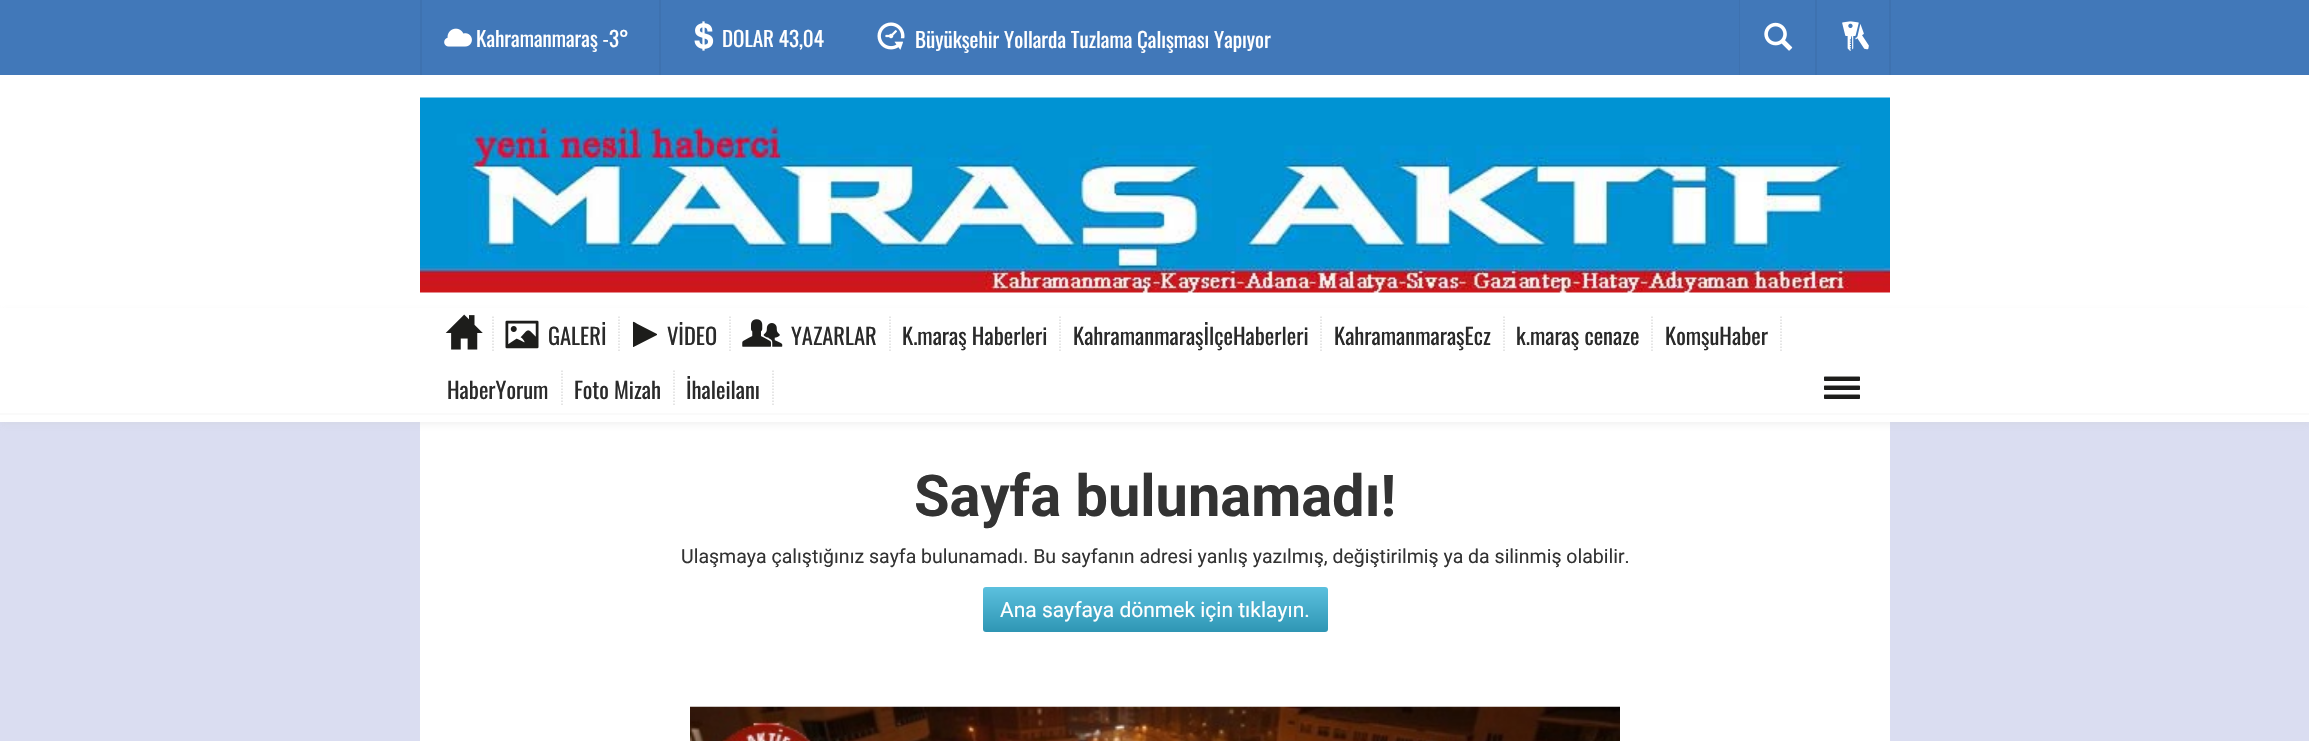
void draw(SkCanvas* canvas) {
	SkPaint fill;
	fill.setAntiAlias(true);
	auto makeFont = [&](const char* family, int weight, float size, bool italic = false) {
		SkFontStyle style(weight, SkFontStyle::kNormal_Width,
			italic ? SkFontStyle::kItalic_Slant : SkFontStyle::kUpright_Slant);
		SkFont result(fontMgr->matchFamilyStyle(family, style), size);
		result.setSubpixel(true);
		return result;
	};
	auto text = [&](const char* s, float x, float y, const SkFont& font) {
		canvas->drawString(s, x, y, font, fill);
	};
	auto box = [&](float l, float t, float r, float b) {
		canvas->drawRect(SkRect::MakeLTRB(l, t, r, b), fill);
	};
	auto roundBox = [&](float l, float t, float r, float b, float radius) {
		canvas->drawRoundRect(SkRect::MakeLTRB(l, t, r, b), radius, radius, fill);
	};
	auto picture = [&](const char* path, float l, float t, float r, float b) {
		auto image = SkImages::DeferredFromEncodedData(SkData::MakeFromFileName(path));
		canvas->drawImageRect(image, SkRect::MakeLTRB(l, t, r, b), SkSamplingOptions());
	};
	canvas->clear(0xFFDADDF1);
	fill.setColor(0xFFFFFFFF);
	box(0, 75, 2309, 308);
	fill.setColor(0xFF4178B9);
	box(0, 0, 2309, 75);
	fill.setColor(0xFF3E72B0);
	box(420, 0, 422, 75);
	picture("image0.png", 444, 28, 472, 47);
	box(659, 0, 661, 75);
	picture("image1.png", 694, 21, 714, 51);
	picture("image2.png", 877, 22, 905, 50);
	box(1739, 0, 1740, 75);
	picture("image3.png", 1764, 22, 1793, 51);
	box(1889, 0, 1891, 75);
	box(1815, 0, 1817, 75);
	picture("image4.png", 1842, 21, 1869, 51);
	picture("image5.png", 420, 97, 1890, 293);
	fill.setColor(0xFFFFFFFF);
	box(420, 422, 1890, 741);
	fill.setColor(0x40CCCCCC);
	fill.setMaskFilter(SkMaskFilter::MakeBlur(kNormal_SkBlurStyle, 3));
	canvas->drawRect(SkRect::MakeLTRB(0, 311, 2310, 425), fill);
	fill.setMaskFilter(nullptr);
	fill.setColor(0xFFFFFFFF);
	box(0, 308, 2309, 422);
	fill.setColor(0xFFFAFAFA);
	box(0, 413, 2309, 415);
	fill.setStyle(SkPaint::kStroke_Style);
	fill.setStrokeWidth(1.5f);
	fill.setColor(0xFFDDDDDD);
	fill.setPathEffect(SkDashPathEffect::Make({{1.5f, 1.5f}}, 0));
	canvas->drawPath(SkPathBuilder().moveTo(493, 316.5f).lineTo(493, 352.5f).detach(), fill);
	fill.setPathEffect(nullptr);
	picture("image6.png", 445, 314, 483, 350);
	fill.setPathEffect(SkDashPathEffect::Make({{1.5f, 1.5f}}, 0));
	canvas->drawPath(SkPathBuilder().moveTo(619, 316.5f).lineTo(619, 352.5f).detach(), fill);
	fill.setPathEffect(nullptr);
	picture("image7.png", 505, 320, 539, 349);
	fill.setPathEffect(SkDashPathEffect::Make({{1.5f, 1.5f}}, 0));
	canvas->drawPath(SkPathBuilder().moveTo(730, 316.5f).lineTo(730, 352.5f).detach(), fill);
	fill.setPathEffect(nullptr);
	fill.setStyle(SkPaint::kFill_Style);
	fill.setColor(0xFF1D1D1B);
	canvas->drawPath(SkPathBuilder().moveTo(633, 347).lineTo(633, 326.5f).cubicTo(633, 320.5f, 632, 321, 637.5f, 324).lineTo(657, 334).lineTo(657, 335).lineTo(633.5f, 347).close().detach(), fill);
	fill.setStyle(SkPaint::kStroke_Style);
	fill.setColor(0xFFDDDDDD);
	fill.setPathEffect(SkDashPathEffect::Make({{1.5f, 1.5f}}, 0));
	canvas->drawPath(SkPathBuilder().moveTo(890, 316.5f).lineTo(890, 352.5f).detach(), fill);
	fill.setPathEffect(nullptr);
	picture("image8.png", 742, 319, 783, 347);
	fill.setPathEffect(SkDashPathEffect::Make({{1.5f, 1.5f}}, 0));
	canvas->drawPath(SkPathBuilder().moveTo(1060, 316.5f).lineTo(1060, 352.5f).detach(), fill);
	fill.setPathEffect(nullptr);
	fill.setPathEffect(SkDashPathEffect::Make({{1.5f, 1.5f}}, 0));
	canvas->drawPath(SkPathBuilder().moveTo(1321, 316.5f).lineTo(1321, 352.5f).detach(), fill);
	fill.setPathEffect(nullptr);
	fill.setPathEffect(SkDashPathEffect::Make({{1.5f, 1.5f}}, 0));
	canvas->drawPath(SkPathBuilder().moveTo(1504, 316.5f).lineTo(1504, 352.5f).detach(), fill);
	fill.setPathEffect(nullptr);
	fill.setPathEffect(SkDashPathEffect::Make({{1.5f, 1.5f}}, 0));
	canvas->drawPath(SkPathBuilder().moveTo(1652, 316.5f).lineTo(1652, 352.5f).detach(), fill);
	fill.setPathEffect(nullptr);
	fill.setPathEffect(SkDashPathEffect::Make({{1.5f, 1.5f}}, 0));
	canvas->drawPath(SkPathBuilder().moveTo(1781, 316.5f).lineTo(1781, 352.5f).detach(), fill);
	fill.setPathEffect(nullptr);
	fill.setPathEffect(SkDashPathEffect::Make({{1.5f, 1.5f}}, 0));
	canvas->drawPath(SkPathBuilder().moveTo(562, 370.5f).lineTo(562, 406.5f).detach(), fill);
	fill.setPathEffect(nullptr);
	fill.setPathEffect(SkDashPathEffect::Make({{1.5f, 1.5f}}, 0));
	canvas->drawPath(SkPathBuilder().moveTo(674, 370.5f).lineTo(674, 406.5f).detach(), fill);
	fill.setPathEffect(nullptr);
	fill.setPathEffect(SkDashPathEffect::Make({{1.5f, 1.5f}}, 0));
	canvas->drawPath(SkPathBuilder().moveTo(773, 370.5f).lineTo(773, 406.5f).detach(), fill);
	fill.setPathEffect(nullptr);
	picture("image9.png", 1824, 376, 1860, 399);
	fill.setStyle(SkPaint::kFill_Style);
	{
		const SkColor colors[] = {0xFF5BC0DE, 0xFF2F96B4};
		const float stops[] = {0, 1};
		const SkPoint ends[] = {{1155, 587}, {1155, 632}};
		fill.setShader(SkGradientShader::MakeLinear(ends, colors, stops, 2, SkTileMode::kClamp));
		fill.setAlpha(255);
	}
	roundBox(983, 587, 1328, 632, 3);
	picture("image10.png", 690, 706, 1620, 741);
	auto font1 = makeFont("Oswald", 400, 21);
	fill.setShader(nullptr);
	fill.setColor(0xFFFFFFFF);
	text("Kahramanmaraş -3°", 476, 47, font1);
	text("DOLAR 43,04", 722, 47, font1);
	text("Büyükşehir Yollarda Tuzlama Çalışması Yapıyor", 915, 48, font1);
	auto font2 = makeFont("Oswald", 400, 22.5f);
	fill.setColor(0xFF2A2A2A);
	text("GALERİ", 548, 345, font2);
	text("VİDEO", 667, 345, font2);
	text("YAZARLAR", 791, 345, font2);
	text("K.maraş Haberleri", 902, 345, font2);
	text("KahramanmaraşİlçeHaberleri", 1073, 345, font2);
	text("KahramanmaraşEcz", 1334, 345, font2);
	text("k.maraş cenaze", 1516, 345, font2);
	text("KomşuHaber", 1665, 345, font2);
	text("HaberYorum", 447, 399, font2);
	text("Foto Mizah", 574, 399, font2);
	text("İhaleilanı", 686, 399, font2);
	auto font3 = makeFont("Roboto", 700, 57.75f);
	fill.setColor(0xFF333333);
	text("Sayfa bulunamadı!", 914, 516, font3);
	auto font4 = makeFont("Roboto", 400, 19.5f);
	text("Ulaşmaya çalıştığınız sayfa bulunamadı. Bu sayfanın adresi yanlış yazılmış, değiştirilmiş ya da silinmiş olabilir.", 681, 563, font4);
	auto font5 = makeFont("Roboto", 400, 21);
	fill.setColor(0xFFFFFFFF);
	text("Ana sayfaya dönmek için tıklayın.", 1000, 617, font5);
}
